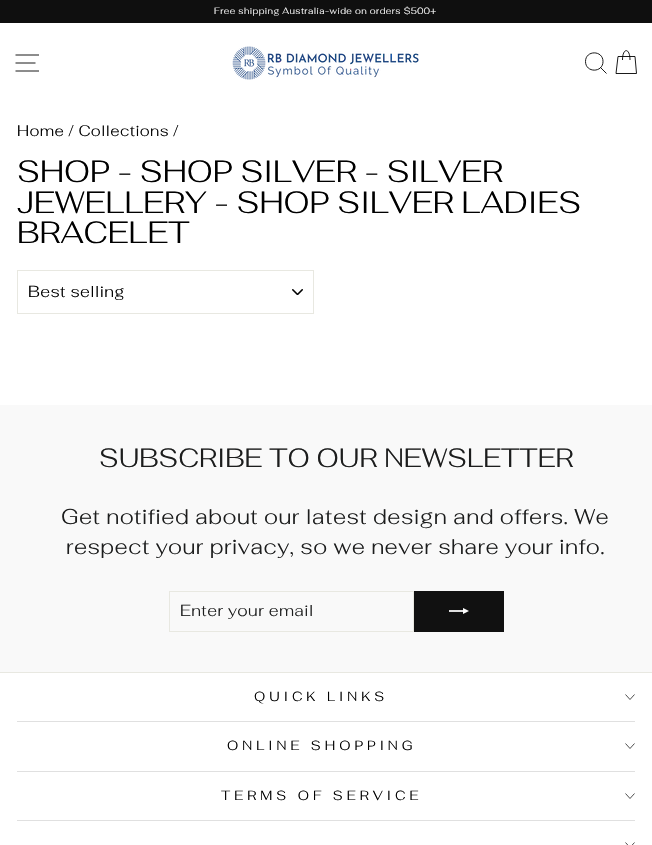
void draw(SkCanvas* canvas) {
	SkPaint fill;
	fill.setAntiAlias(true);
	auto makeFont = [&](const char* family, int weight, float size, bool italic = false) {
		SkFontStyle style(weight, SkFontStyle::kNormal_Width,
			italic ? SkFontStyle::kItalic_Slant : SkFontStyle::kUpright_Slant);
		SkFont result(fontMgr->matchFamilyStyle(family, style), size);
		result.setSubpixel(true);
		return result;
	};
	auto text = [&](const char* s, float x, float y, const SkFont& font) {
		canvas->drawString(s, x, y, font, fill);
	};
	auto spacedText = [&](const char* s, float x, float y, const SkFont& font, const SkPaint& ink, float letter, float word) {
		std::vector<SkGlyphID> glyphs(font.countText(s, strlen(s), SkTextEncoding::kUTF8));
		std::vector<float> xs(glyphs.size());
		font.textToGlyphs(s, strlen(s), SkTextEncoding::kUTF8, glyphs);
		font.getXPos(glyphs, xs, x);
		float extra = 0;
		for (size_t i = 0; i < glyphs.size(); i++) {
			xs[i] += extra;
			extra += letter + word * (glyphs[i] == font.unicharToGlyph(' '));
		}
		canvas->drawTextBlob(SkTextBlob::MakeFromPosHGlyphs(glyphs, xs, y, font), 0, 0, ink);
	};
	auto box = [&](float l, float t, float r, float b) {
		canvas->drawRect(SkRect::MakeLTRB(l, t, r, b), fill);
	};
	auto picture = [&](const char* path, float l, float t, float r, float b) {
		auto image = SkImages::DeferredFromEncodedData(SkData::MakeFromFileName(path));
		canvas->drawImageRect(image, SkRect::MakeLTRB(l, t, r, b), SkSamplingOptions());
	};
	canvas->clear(0xFFFFFFFF);
	fill.setColor(0xFF0F0F0F);
	box(0, 0, 652, 23);
	fill.setStyle(SkPaint::kStroke_Style);
	fill.setStrokeWidth(0.9f);
	fill.setColor(0xFF000000);
	canvas->drawPath(SkPathBuilder().moveTo(15.5f, 55).lineTo(39, 55).moveTo(15.5f, 63).lineTo(35.5f, 63).moveTo(15.5f, 71).lineTo(39, 71).detach(), fill);
	picture("image0.png", 232, 46, 419, 80);
	canvas->drawPath(SkPathBuilder().moveTo(603, 61.5f).cubicTo(603, 73, 585.5f, 73, 585.5f, 61.5f).cubicTo(585.5f, 50, 603, 50, 603, 61.5f).close().moveTo(606.5f, 73.5f).lineTo(600.5f, 67.5f).moveTo(622.5f, 60).cubicTo(622.5f, 47.5f, 630, 47.5f, 630, 60).moveTo(618, 56.5f).lineTo(635, 56.5f).lineTo(636.5f, 73.5f).lineTo(616, 73.5f).close().detach(), fill);
	picture("image1.png", 292, 289, 303, 295);
	fill.setStrokeWidth(1);
	fill.setColor(0xFFE8E8E1);
	canvas->drawRect(SkRect::MakeLTRB(17.5f, 270.5f, 313.5f, 313.5f), fill);
	fill.setStyle(SkPaint::kFill_Style);
	fill.setColor(0xFFF9F9F9);
	box(0, 405, 652, 672);
	fill.setStyle(SkPaint::kStroke_Style);
	fill.setColor(0xFFE8E8E1);
	canvas->drawRect(SkRect::MakeLTRB(169.5f, 591.5f, 413.5f, 631.5f), fill);
	fill.setStyle(SkPaint::kFill_Style);
	fill.setColor(0xFF111111);
	box(414, 591, 504, 632);
	picture("image2.png", 449, 608, 469, 614);
	fill.setColor(0xFFE8E8E1);
	box(0, 672, 652, 673);
	fill.setStyle(SkPaint::kStroke_Style);
	fill.setStrokeWidth(0.7f);
	fill.setColor(0xFF000000);
	canvas->drawPath(SkPathBuilder().moveTo(625.5f, 694.5f).lineTo(630, 699.5f).lineTo(634.5f, 694.5f).detach(), fill);
	fill.setStyle(SkPaint::kFill_Style);
	fill.setColor(0xFFE0E0E0);
	box(17, 721, 635, 722);
	fill.setStyle(SkPaint::kStroke_Style);
	fill.setColor(0xFF000000);
	canvas->drawPath(SkPathBuilder().moveTo(625.5f, 743.5f).lineTo(630, 748.5f).lineTo(634.5f, 743.5f).detach(), fill);
	fill.setStyle(SkPaint::kFill_Style);
	fill.setColor(0xFFE0E0E0);
	box(17, 771, 635, 772);
	fill.setStyle(SkPaint::kStroke_Style);
	fill.setColor(0xFF000000);
	canvas->drawPath(SkPathBuilder().moveTo(625.5f, 793.5f).lineTo(630, 798.5f).lineTo(634.5f, 793.5f).detach(), fill);
	fill.setStyle(SkPaint::kFill_Style);
	fill.setColor(0xFFE0E0E0);
	box(17, 820, 635, 821);
	fill.setStyle(SkPaint::kStroke_Style);
	fill.setColor(0xFF000000);
	canvas->drawPath(SkPathBuilder().moveTo(625.5f, 842.5f).lineTo(630, 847.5f).lineTo(634.5f, 842.5f).detach(), fill);
	auto font1 = makeFont("Fahkwang", 300, 9);
	fill.setStyle(SkPaint::kFill_Style);
	fill.setColor(0xFFFFFFFF);
	spacedText("Free shipping Australia-wide on orders $500+", 214, 14, font1, fill, 0.4f, 0);
	auto font2 = makeFont("Fahkwang", 300, 15.25f);
	fill.setColor(0xFF000000);
	spacedText("Home / Collections /", 17, 136, font2, fill, 0.4f, 0);
	auto font3 = makeFont("Fahkwang", 300, 30.6f);
	text("SHOP - SHOP SILVER - SILVER", 17, 182, font3);
	text("JEWELLERY - SHOP SILVER LADIES", 17, 213, font3);
	text("BRACELET", 17, 243, font3);
	auto font4 = makeFont("Fahkwang", 300, 16);
	spacedText("Best selling", 28, 297, font4, fill, 0.4f, 0);
	auto font5 = makeFont("Fahkwang", 300, 26.25f);
	fill.setColor(0xFF1C1D1D);
	text("SUBSCRIBE TO OUR NEWSLETTER", 99, 467, font5);
	auto font6 = makeFont("Fahkwang", 300, 21.5f);
	spacedText("Get notified about our latest design and offers. We", 61, 524, font6, fill, 0.4f, 0);
	spacedText("respect your privacy, so we never share your info.", 66, 554, font6, fill, 0.4f, 0);
	spacedText("Enter your email", 180, 616, font4, fill, 0.4f, 0);
	auto font7 = makeFont("Fahkwang", 300, 13.25f);
	fill.setColor(0xFF000000);
	spacedText("QUICK LINKS", 254, 701, font7, fill, 4, 0);
	spacedText("ONLINE SHOPPING", 227, 750, font7, fill, 4, 0);
	spacedText("TERMS OF SERVICE", 221, 800, font7, fill, 4, 0);
}
